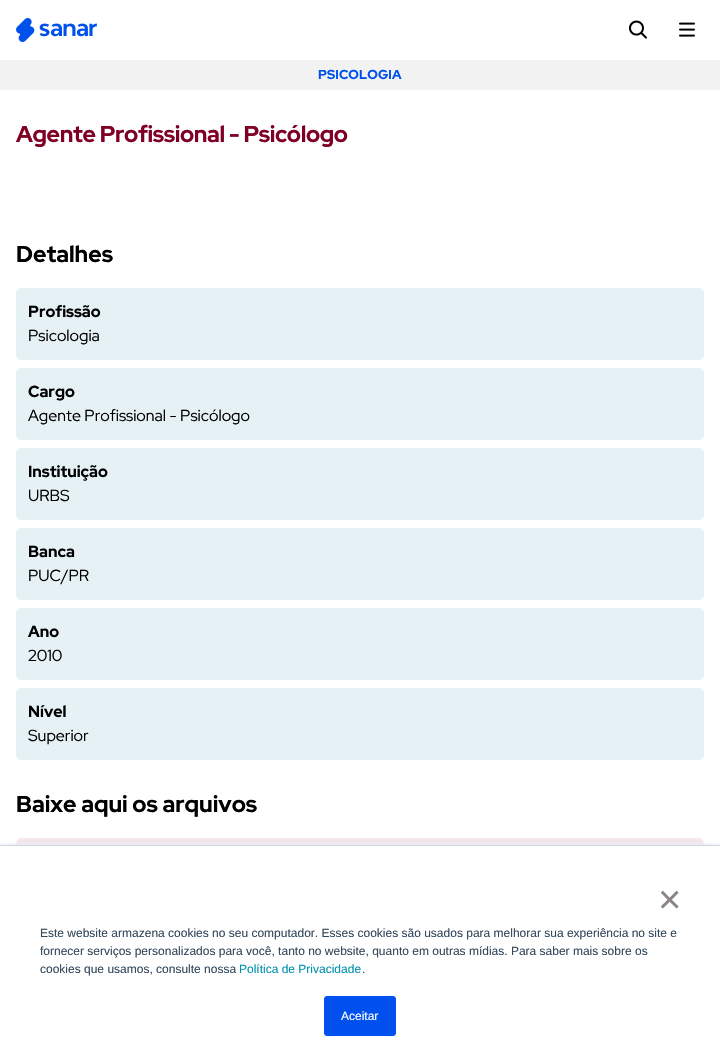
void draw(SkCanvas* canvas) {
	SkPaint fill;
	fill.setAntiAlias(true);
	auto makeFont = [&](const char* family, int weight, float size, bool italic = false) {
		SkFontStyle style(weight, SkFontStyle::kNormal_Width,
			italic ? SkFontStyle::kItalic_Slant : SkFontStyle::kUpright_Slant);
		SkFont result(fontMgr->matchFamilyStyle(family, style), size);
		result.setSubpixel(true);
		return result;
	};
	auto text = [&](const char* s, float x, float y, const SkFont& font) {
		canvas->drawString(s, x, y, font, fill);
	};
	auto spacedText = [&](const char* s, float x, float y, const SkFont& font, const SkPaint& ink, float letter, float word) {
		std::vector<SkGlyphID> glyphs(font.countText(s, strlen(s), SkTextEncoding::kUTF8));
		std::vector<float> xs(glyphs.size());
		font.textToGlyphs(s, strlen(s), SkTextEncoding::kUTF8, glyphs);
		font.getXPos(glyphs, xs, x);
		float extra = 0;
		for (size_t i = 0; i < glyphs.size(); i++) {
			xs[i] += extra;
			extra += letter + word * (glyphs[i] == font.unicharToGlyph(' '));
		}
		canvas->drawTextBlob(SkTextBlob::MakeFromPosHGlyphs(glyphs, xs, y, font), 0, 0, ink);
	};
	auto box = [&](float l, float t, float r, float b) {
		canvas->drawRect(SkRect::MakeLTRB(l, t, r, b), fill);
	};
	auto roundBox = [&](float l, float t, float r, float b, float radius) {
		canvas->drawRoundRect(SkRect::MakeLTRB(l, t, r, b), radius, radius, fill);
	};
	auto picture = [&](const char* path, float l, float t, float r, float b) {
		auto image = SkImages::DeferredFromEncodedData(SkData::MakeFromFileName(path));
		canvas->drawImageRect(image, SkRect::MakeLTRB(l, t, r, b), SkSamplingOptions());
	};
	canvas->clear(0xFFFFFFFF);
	picture("image0.png", 16, 18, 97, 42);
	picture("image1.png", 629, 20, 647, 39);
	picture("image2.png", 679, 22, 695, 37);
	fill.setColor(0xFFF2F2F2);
	box(0, 60, 720, 90);
	fill.setColor(0xFFE6F1F5);
	roundBox(16, 288, 704, 360, 6);
	roundBox(16, 368, 704, 440, 6);
	roundBox(16, 448, 704, 520, 6);
	roundBox(16, 528, 704, 600, 6);
	roundBox(16, 608, 704, 680, 6);
	roundBox(16, 688, 704, 760, 6);
	fill.setColor(0xFFF4E6EA);
	roundBox(16, 838, 704, 900, 6);
	fill.setColor(0xFFEAF0F6);
	fill.setMaskFilter(SkMaskFilter::MakeBlur(kNormal_SkBlurStyle, 1.5f));
	canvas->drawRect(SkRect::MakeLTRB(0, 844, 720, 1061), fill);
	fill.setMaskFilter(nullptr);
	fill.setColor(0xFFFFFFFF);
	box(0, 846, 720, 1062);
	fill.setColor(0xFFCBD6E2);
	box(0, 845, 720, 846);
	fill.setColor(0xFF0050F0);
	canvas->drawRoundRect(SkRect::MakeLTRB(324.5f, 996.5f, 395.5f, 1035.5f), 2.5f, 2.5f, fill);
	fill.setStyle(SkPaint::kStroke_Style);
	fill.setStrokeWidth(1);
	canvas->drawRoundRect(SkRect::MakeLTRB(324.5f, 996.5f, 395.5f, 1035.5f), 2.5f, 2.5f, fill);
	auto font1 = makeFont("Red Hat Display", 700, 13);
	fill.setStyle(SkPaint::kFill_Style);
	fill.setColor(0xFF0051EB);
	spacedText("PSICOLOGIA", 318, 79, font1, fill, 0.1f, 0);
	auto font2 = makeFont("Red Hat Display", 700, 23);
	fill.setColor(0xFF800024);
	spacedText("Agente Profissional - Psicólogo", 16, 142, font2, fill, -0.35f, 0);
	fill.setColor(0xFF000000);
	text("Detalhes", 16, 262, font2);
	auto font3 = makeFont("Red Hat Display", 700, 16);
	text("Profissão", 28, 317, font3);
	auto font4 = makeFont("Red Hat Display", 400, 16);
	text("Psicologia", 28, 341, font4);
	text("Cargo", 28, 397, font3);
	text("Agente Profissional - Psicólogo", 28, 421, font4);
	text("Instituição", 28, 477, font3);
	text("URBS", 28, 501, font4);
	text("Banca", 28, 557, font3);
	text("PUC/PR", 28, 581, font4);
	text("Ano", 28, 637, font3);
	text("2010", 28, 661, font4);
	text("Nível", 28, 717, font3);
	text("Superior", 28, 741, font4);
	text("Baixe aqui os arquivos", 16, 812, font2);
	auto font5 = makeFont("Liberation Sans", 400, 40);
	fill.setColor(0xFF8B8589);
	text("×", 658, 913, font5);
	auto font6 = makeFont("Liberation Sans", 400, 12);
	fill.setColor(0xFF33475B);
	text("Este website armazena cookies no seu computador. Esses cookies são usados para melhorar sua experiência no site e", 40, 937, font6);
	text("fornecer serviços personalizados para você, tanto no website, quanto em outras mídias. Para saber mais sobre os", 40, 955, font6);
	text("cookies que usamos, consulte nossa", 40, 973, font6);
	fill.setColor(0xFF0091AE);
	text("Política de Privacidade", 239, 973, font6);
	fill.setColor(0xFF33475B);
	text(".", 362, 973, font6);
	fill.setColor(0xFFFFFFFF);
	text("Aceitar", 341, 1020, font6);
}
